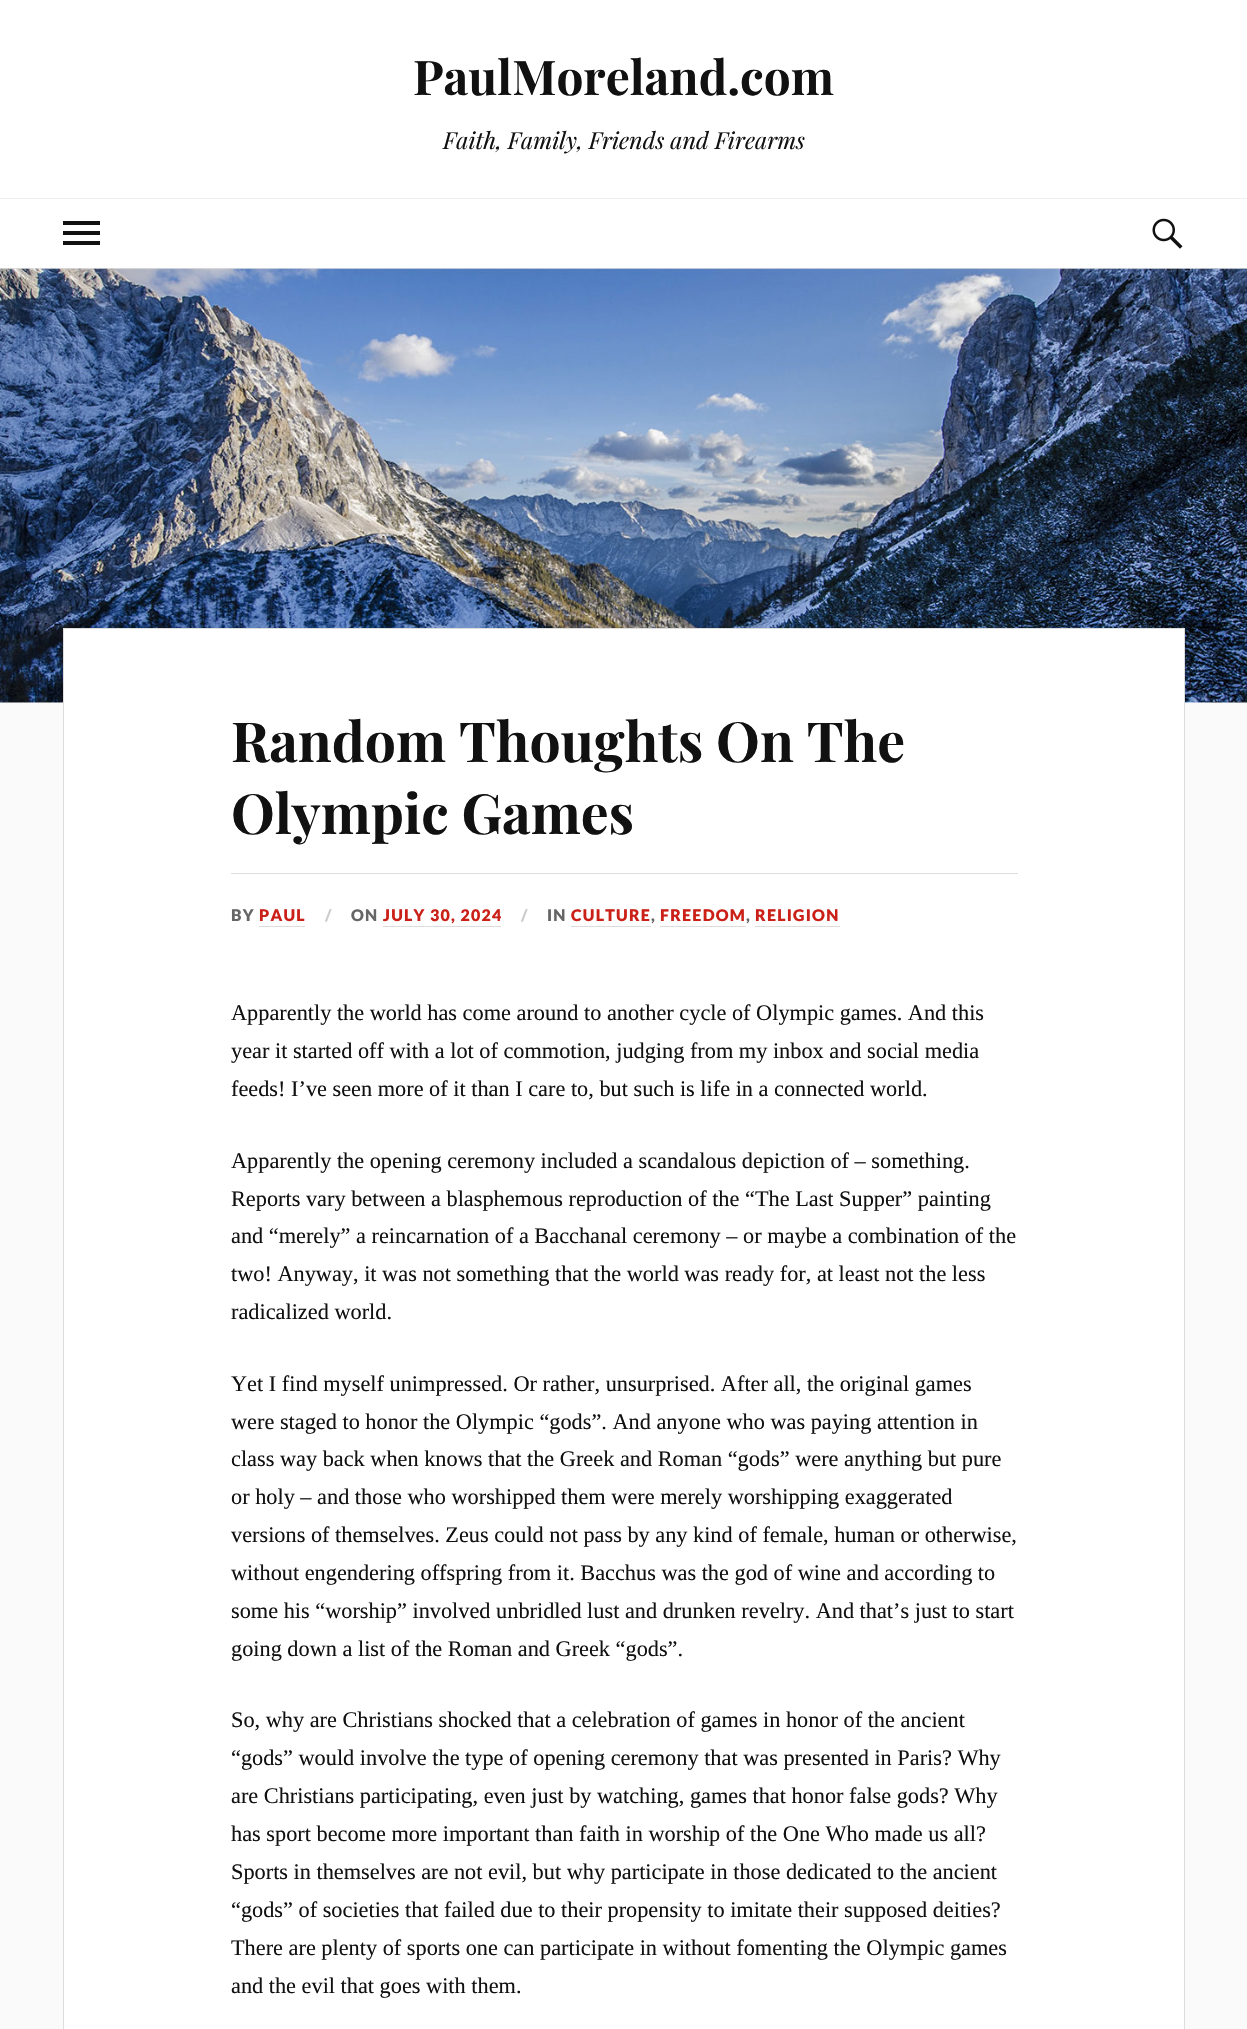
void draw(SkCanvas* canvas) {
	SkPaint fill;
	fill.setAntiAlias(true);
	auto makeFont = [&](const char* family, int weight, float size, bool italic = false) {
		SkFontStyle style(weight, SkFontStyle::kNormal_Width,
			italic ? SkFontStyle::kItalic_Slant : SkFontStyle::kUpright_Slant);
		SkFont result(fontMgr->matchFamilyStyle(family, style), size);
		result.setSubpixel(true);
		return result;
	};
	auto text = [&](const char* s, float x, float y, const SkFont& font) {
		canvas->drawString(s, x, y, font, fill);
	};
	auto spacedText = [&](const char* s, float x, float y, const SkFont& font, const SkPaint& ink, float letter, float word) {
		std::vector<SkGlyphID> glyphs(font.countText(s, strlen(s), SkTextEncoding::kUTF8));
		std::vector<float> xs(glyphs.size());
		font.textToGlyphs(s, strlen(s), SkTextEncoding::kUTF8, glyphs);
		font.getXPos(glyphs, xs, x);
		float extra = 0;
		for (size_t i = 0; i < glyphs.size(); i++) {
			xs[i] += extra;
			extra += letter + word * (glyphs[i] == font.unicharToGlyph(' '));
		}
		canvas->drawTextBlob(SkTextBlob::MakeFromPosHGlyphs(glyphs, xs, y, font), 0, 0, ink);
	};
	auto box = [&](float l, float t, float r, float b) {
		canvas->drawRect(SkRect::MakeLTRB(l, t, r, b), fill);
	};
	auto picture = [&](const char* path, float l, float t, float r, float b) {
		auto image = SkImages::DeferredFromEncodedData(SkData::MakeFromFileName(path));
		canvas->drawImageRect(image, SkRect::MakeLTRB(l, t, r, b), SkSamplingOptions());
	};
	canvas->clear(0xFFFAFAFA);
	fill.setColor(0xFFFFFFFF);
	box(0, 0, 1247, 198);
	box(0, 199, 1247, 268);
	fill.setColor(0xFFEEEEEE);
	box(0, 198, 1247, 199);
	fill.setColor(0xFF111111);
	box(63, 221, 100, 225);
	box(63, 231, 100, 235);
	box(63, 241, 100, 245);
	picture("image0.png", 1152, 218, 1183, 249);
	fill.setColor(0xFFDDDDDD);
	box(0, 268, 1247, 269);
	picture("image1.png", 0, 268, 1247, 703);
	fill.setColor(0xFFFFFFFF);
	canvas->drawRect(SkRect::MakeLTRB(63.5f, 628.5f, 1184.5f, 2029.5f), fill);
	fill.setStyle(SkPaint::kStroke_Style);
	fill.setStrokeWidth(1);
	fill.setColor(0xFFDDDDDD);
	canvas->drawRect(SkRect::MakeLTRB(63.5f, 628.5f, 1184.5f, 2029.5f), fill);
	fill.setStyle(SkPaint::kFill_Style);
	box(231, 873, 1018, 874);
	box(259, 926, 305, 927);
	box(383, 926, 501, 927);
	box(571, 926, 651, 927);
	box(660, 926, 746, 927);
	box(755, 926, 840, 927);
	auto font1 = makeFont("Playfair Display", 700, 47.75f);
	fill.setColor(0xFF111111);
	text("PaulMoreland.com", 413, 95, font1);
	auto font2 = makeFont("Playfair Display", 400, 23.4f, true);
	text("Faith, Family, Friends and Firearms", 443, 149, font2);
	auto font3 = makeFont("Playfair Display", 700, 55.25f);
	text("Random Thoughts On The", 231, 762, font3);
	text("Olympic Games", 231, 834, font3);
	auto font4 = makeFont("Lato", 900, 16);
	fill.setColor(0xFF666666);
	spacedText("BY", 231, 921, font4, fill, 1.25f, 0);
	fill.setColor(0xFFCA2017);
	spacedText("PAUL", 259, 921, font4, fill, 1.25f, 0);
	fill.setColor(0xFFCCCCCC);
	spacedText("/", 325, 921, font4, fill, 1.25f, 0);
	fill.setColor(0xFF666666);
	spacedText("ON", 351, 921, font4, fill, 1.25f, 0);
	fill.setColor(0xFFCA2017);
	spacedText("JULY 30, 2024", 383, 921, font4, fill, 1.25f, 0);
	fill.setColor(0xFFCCCCCC);
	spacedText("/", 521, 921, font4, fill, 1.25f, 0);
	fill.setColor(0xFF666666);
	spacedText("IN", 547, 921, font4, fill, 1.25f, 0);
	fill.setColor(0xFFCA2017);
	spacedText("CULTURE", 571, 921, font4, fill, 1.25f, 0);
	fill.setColor(0xFF666666);
	spacedText(",", 651, 921, font4, fill, 1.25f, 0);
	fill.setColor(0xFFCA2017);
	spacedText("FREEDOM", 660, 921, font4, fill, 1.25f, 0);
	fill.setColor(0xFF666666);
	spacedText(",", 746, 921, font4, fill, 1.25f, 0);
	fill.setColor(0xFFCA2017);
	spacedText("RELIGION", 755, 921, font4, fill, 1.25f, 0);
	auto font5 = makeFont("Liberation Serif", 400, 22.3f);
	fill.setColor(0xFF111111);
	text("Apparently the world has come around to another cycle of Olympic games. And this", 231, 1020, font5);
	text("year it started off with a lot of commotion, judging from my inbox and social media", 231, 1058, font5);
	text("feeds! I’ve seen more of it than I care to, but such is life in a connected world.", 231, 1096, font5);
	text("Apparently the opening ceremony included a scandalous depiction of – something.", 231, 1168, font5);
	text("Reports vary between a blasphemous reproduction of the “The Last Supper” painting", 231, 1206, font5);
	text("and “merely” a reincarnation of a Bacchanal ceremony – or maybe a combination of the", 231, 1243, font5);
	text("two! Anyway, it was not something that the world was ready for, at least not the less", 231, 1281, font5);
	text("radicalized world.", 231, 1319, font5);
	text("Yet I find myself unimpressed. Or rather, unsurprised. After all, the original games", 231, 1391, font5);
	text("were staged to honor the Olympic “gods”. And anyone who was paying attention in", 231, 1429, font5);
	text("class way back when knows that the Greek and Roman “gods” were anything but pure", 231, 1466, font5);
	text("or holy – and those who worshipped them were merely worshipping exaggerated", 231, 1504, font5);
	text("versions of themselves. Zeus could not pass by any kind of female, human or otherwise,", 231, 1542, font5);
	text("without engendering offspring from it. Bacchus was the god of wine and according to", 231, 1580, font5);
	text("some his “worship” involved unbridled lust and drunken revelry. And that’s just to start", 231, 1618, font5);
	text("going down a list of the Roman and Greek “gods”.", 231, 1656, font5);
	text("So, why are Christians shocked that a celebration of games in honor of the ancient", 231, 1727, font5);
	text("“gods” would involve the type of opening ceremony that was presented in Paris? Why", 231, 1765, font5);
	text("are Christians participating, even just by watching, games that honor false gods? Why", 231, 1803, font5);
	text("has sport become more important than faith in worship of the One Who made us all?", 231, 1841, font5);
	text("Sports in themselves are not evil, but why participate in those dedicated to the ancient", 231, 1879, font5);
	text("“gods” of societies that failed due to their propensity to imitate their supposed deities?", 231, 1917, font5);
	text("There are plenty of sports one can participate in without fomenting the Olympic games", 231, 1955, font5);
	text("and the evil that goes with them.", 231, 1993, font5);
}
